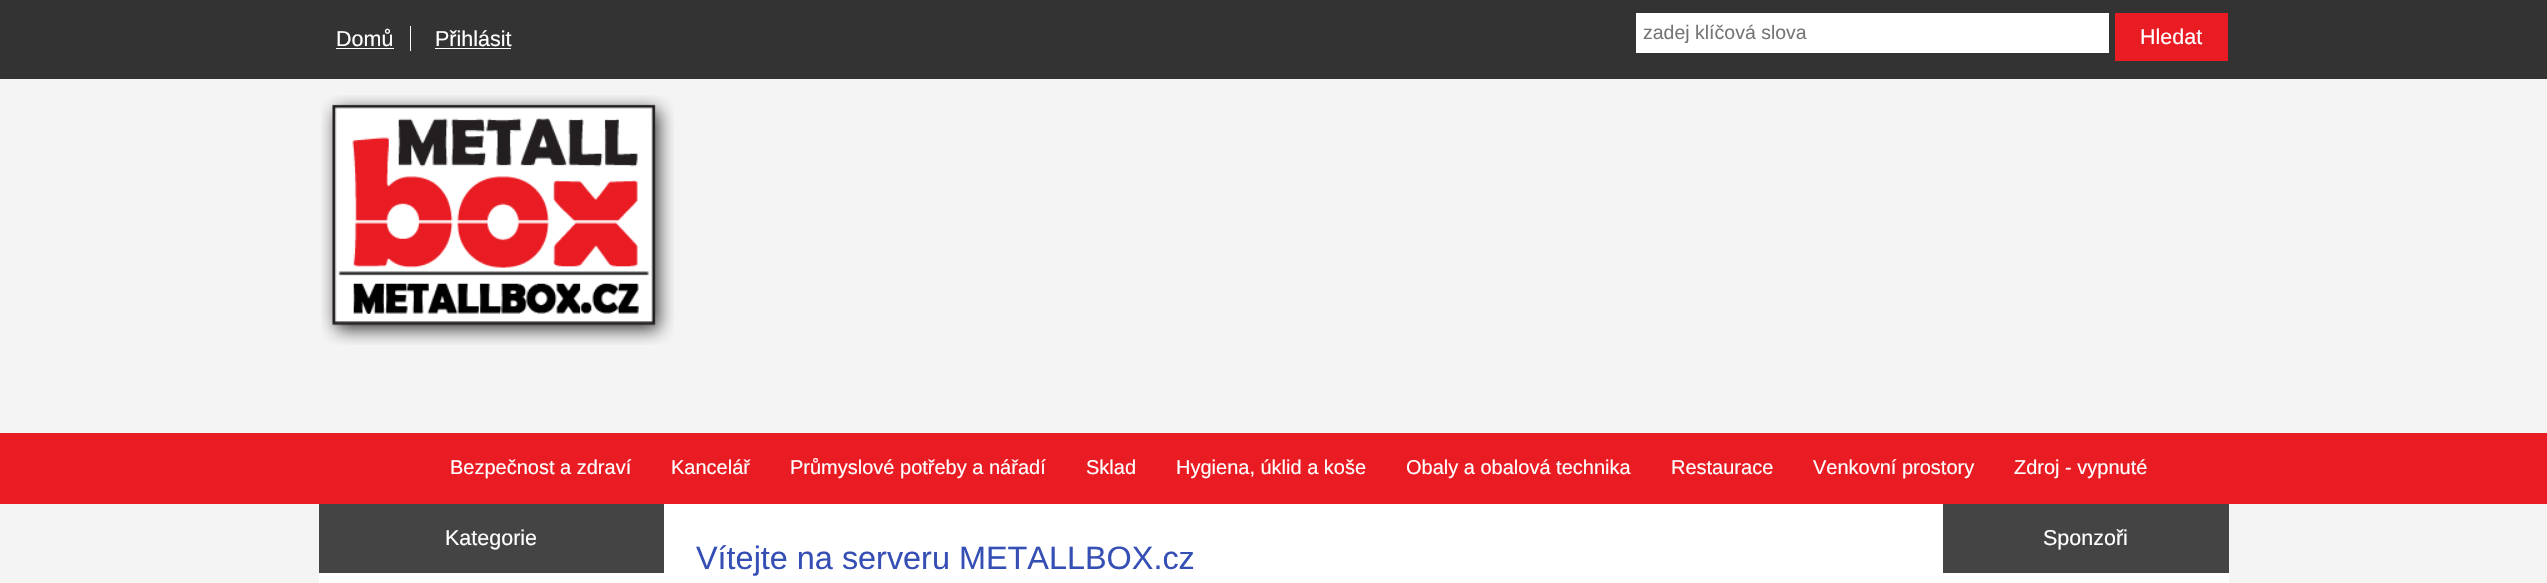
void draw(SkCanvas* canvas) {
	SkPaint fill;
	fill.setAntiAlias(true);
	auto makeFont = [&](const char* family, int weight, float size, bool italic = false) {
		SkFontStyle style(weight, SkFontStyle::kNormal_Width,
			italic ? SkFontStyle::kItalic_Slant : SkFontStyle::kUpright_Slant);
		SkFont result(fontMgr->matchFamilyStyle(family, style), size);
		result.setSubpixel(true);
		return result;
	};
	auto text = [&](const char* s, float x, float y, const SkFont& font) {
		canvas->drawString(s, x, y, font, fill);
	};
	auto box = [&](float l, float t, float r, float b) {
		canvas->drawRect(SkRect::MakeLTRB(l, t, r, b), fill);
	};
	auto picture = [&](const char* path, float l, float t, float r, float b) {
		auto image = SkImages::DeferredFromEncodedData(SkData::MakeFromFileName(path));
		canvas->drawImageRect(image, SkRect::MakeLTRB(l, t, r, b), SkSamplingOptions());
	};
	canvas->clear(0xFFF4F4F4);
	fill.setColor(0xFF333333);
	box(0, 0, 2547, 79);
	fill.setColor(0xFFFFFFFF);
	box(410, 26, 411, 51);
	box(336, 48, 394, 49);
	box(435, 48, 511, 49);
	box(1636, 13, 2109, 53);
	fill.setColor(0xFFE91C24);
	box(2115, 13, 2228, 61);
	picture("image0.png", 321, 95, 674, 345);
	box(0, 433, 2547, 504);
	fill.setColor(0xFFFFFFFF);
	box(319, 504, 2229, 583);
	fill.setColor(0xFF444444);
	box(319, 504, 664, 573);
	box(1943, 504, 2229, 573);
	auto font1 = makeFont("Liberation Sans", 400, 21.5f);
	fill.setColor(0xFFFFFFFF);
	text("Domů", 336, 46, font1);
	text("Přihlásit", 435, 46, font1);
	auto font2 = makeFont("Liberation Sans", 400, 19.5f);
	fill.setColor(0xFF757575);
	text("zadej klíčová slova", 1643, 39, font2);
	fill.setColor(0xFFFFFFFF);
	text("Hledat", 2140, 44, font1);
	auto font3 = makeFont("Liberation Sans", 400, 20);
	text("Bezpečnost a zdraví", 450, 474, font3);
	text("Kancelář", 671, 474, font3);
	text("Průmyslové potřeby a nářadí", 790, 474, font3);
	text("Sklad", 1086, 474, font3);
	text("Hygiena, úklid a koše", 1176, 474, font3);
	text("Obaly a obalová technika", 1406, 474, font3);
	text("Restaurace", 1671, 474, font3);
	text("Venkovní prostory", 1813, 474, font3);
	text("Zdroj - vypnuté", 2014, 474, font3);
	text("Kategorie", 445, 545, font1);
	text("Sponzoři", 2043, 545, font1);
	auto font4 = makeFont("Liberation Sans", 400, 32.4f);
	fill.setColor(0xFF364FB5);
	text("Vítejte na serveru METALLBOX.cz", 696, 569, font4);
}
